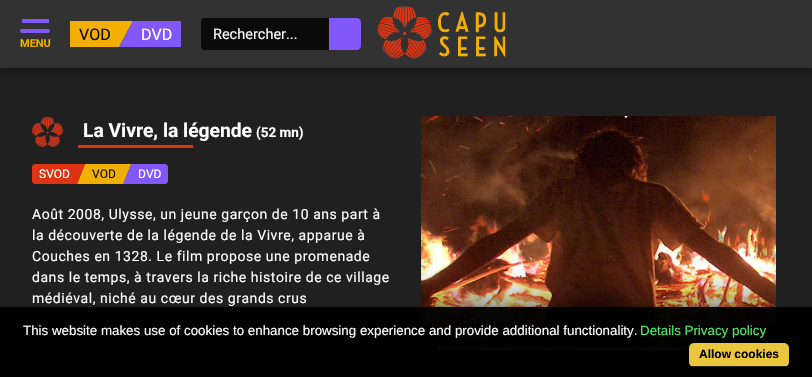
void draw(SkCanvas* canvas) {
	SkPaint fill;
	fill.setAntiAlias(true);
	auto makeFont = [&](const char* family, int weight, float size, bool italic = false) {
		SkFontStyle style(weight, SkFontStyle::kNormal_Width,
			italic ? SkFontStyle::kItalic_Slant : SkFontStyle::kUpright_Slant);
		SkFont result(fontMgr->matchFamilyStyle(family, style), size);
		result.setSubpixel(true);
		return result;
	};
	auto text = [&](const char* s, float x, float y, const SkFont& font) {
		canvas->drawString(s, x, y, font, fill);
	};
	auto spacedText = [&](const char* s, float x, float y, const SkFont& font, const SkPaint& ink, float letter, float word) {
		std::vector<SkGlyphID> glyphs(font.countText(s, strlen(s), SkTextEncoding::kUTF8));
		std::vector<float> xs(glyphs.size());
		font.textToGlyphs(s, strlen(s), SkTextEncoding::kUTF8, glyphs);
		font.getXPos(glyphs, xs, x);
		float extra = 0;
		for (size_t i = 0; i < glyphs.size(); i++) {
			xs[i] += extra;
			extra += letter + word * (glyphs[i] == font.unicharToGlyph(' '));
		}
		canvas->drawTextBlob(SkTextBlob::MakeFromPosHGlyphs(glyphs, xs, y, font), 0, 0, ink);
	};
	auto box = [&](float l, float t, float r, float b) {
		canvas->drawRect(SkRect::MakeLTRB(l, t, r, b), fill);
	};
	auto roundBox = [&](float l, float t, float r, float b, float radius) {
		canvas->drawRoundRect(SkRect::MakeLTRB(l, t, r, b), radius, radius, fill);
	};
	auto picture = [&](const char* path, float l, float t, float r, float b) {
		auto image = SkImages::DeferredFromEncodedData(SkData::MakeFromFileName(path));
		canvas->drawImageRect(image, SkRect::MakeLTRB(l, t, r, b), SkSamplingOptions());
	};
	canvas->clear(0xFF202020);
	fill.setColor(0x59000000);
	fill.setMaskFilter(SkMaskFilter::MakeBlur(kNormal_SkBlurStyle, 4.5f));
	canvas->drawRect(SkRect::MakeLTRB(-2, 0, 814, 72), fill);
	fill.setMaskFilter(nullptr);
	fill.setColor(0xFF323232);
	box(0, 0, 812, 68);
	fill.setColor(0xFFF2AF01);
	box(70, 21, 120, 47);
	canvas->drawPath(SkPathBuilder().moveTo(119, 47).lineTo(119, 21).lineTo(133, 21).close().detach(), fill);
	fill.setColor(0xFF8258FA);
	box(132, 21, 181, 47);
	canvas->drawPath(SkPathBuilder().moveTo(133, 21).lineTo(133, 47).lineTo(119, 47).close().detach(), fill);
	fill.setColor(0xFF0B0B0B);
	canvas->drawPath(SkPathBuilder().moveTo(204, 18).lineTo(329, 18).lineTo(329, 50).lineTo(204, 50).cubicTo(202.5f, 50, 201, 48.5f, 201, 47).lineTo(201, 21).cubicTo(201, 19.5f, 202.5f, 18, 204, 18).close().detach(), fill);
	fill.setColor(0xFF8258FA);
	canvas->drawPath(SkPathBuilder().moveTo(329, 18).lineTo(357, 18).cubicTo(359, 18, 361, 20, 361, 22).lineTo(361, 46).cubicTo(361, 48, 359, 50, 357, 50).lineTo(329, 50).close().detach(), fill);
	box(22, 19, 49, 23);
	roundBox(20, 29, 50, 33, 2);
	picture("image0.png", 377, 6, 506, 59);
	picture("image1.png", 32, 117, 63, 147);
	fill.setColor(0xFFDE3414);
	box(78, 145, 193, 148);
	canvas->drawPath(SkPathBuilder().moveTo(35, 164).lineTo(77, 164).lineTo(77, 184).lineTo(35, 184).cubicTo(33.5f, 184, 32, 182.5f, 32, 181).lineTo(32, 167).cubicTo(32, 165.5f, 33.5f, 164, 35, 164).close().detach(), fill);
	fill.setColor(0xFFF2AF01);
	box(85, 164, 123, 184);
	fill.setColor(0xFF8258FA);
	canvas->drawPath(SkPathBuilder().moveTo(131, 164).lineTo(165, 164).cubicTo(166.5f, 164, 168, 165.5f, 168, 167).lineTo(168, 181).cubicTo(168, 182.5f, 166.5f, 184, 165, 184).lineTo(131, 184).close().detach(), fill);
	canvas->drawPath(SkPathBuilder().moveTo(131, 164).lineTo(131, 184).lineTo(123, 184).close().detach(), fill);
	picture("image2.png", 421, 116, 776, 371);
	canvas->save();
	canvas->clipRect(SkRect::MakeLTRB(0, 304, 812, 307));
	fill.setColor(0x99000000);
	fill.setMaskFilter(SkMaskFilter::MakeBlur(kNormal_SkBlurStyle, 2.5f));
	canvas->drawRect(SkRect::MakeLTRB(2, 309, 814, 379), fill);
	fill.setMaskFilter(nullptr);
	canvas->restore();
	fill.setColor(0xF2000000);
	box(0, 307, 812, 377);
	fill.setColor(0xFFEAC53E);
	roundBox(689, 343, 789, 367, 5);
	fill.setColor(0xFF222222);
	box(692, 366, 787, 367);
	auto font1 = makeFont("Roboto", 400, 16);
	fill.setColor(0xFF0B0B0B);
	text("VOD", 79, 40, font1);
	fill.setColor(0xFFFFFFFF);
	text("DVD", 141, 40, font1);
	auto font2 = makeFont("Roboto", 400, 14.5f);
	text("Rechercher...", 213, 39, font2);
	auto font3 = makeFont("Roboto", 700, 11);
	fill.setColor(0xFFF2AF01);
	text("MENU", 20, 47, font3);
	auto font4 = makeFont("Roboto", 700, 19.25f);
	fill.setColor(0xFFFFFFFF);
	text("La Vivre, la légende", 83, 137, font4);
	auto font5 = makeFont("Roboto", 700, 13.5f);
	text("(52 mn)", 256, 137, font5);
	auto font6 = makeFont("Roboto", 400, 12);
	text("SVOD", 39, 178, font6);
	fill.setColor(0xFF0B0B0B);
	text("VOD", 92, 178, font6);
	fill.setColor(0xFFF2AF01);
	canvas->drawPath(SkPathBuilder().moveTo(85, 164).lineTo(85, 184).lineTo(77, 184).close().moveTo(123, 184).lineTo(123, 164).lineTo(131, 164).close().detach(), fill);
	fill.setColor(0xFFDE3414);
	canvas->drawPath(SkPathBuilder().moveTo(77, 184).lineTo(77, 164).lineTo(85, 164).close().detach(), fill);
	fill.setColor(0xFFFFFFFF);
	text("DVD", 138, 178, font6);
	auto font7 = makeFont("Roboto", 400, 14);
	spacedText("Août 2008, Ulysse, un jeune garçon de 10 ans part à", 32, 219, font7, fill, 0.55f, 0);
	spacedText("la découverte de la légende de la Vivre, apparue à", 32, 240, font7, fill, 0.55f, 0);
	spacedText("Couches en 1328. Le film propose une promenade", 32, 261, font7, fill, 0.55f, 0);
	spacedText("dans le temps, à travers la riche histoire de ce village", 32, 282, font7, fill, 0.55f, 0);
	spacedText("médiéval, niché au cœur des grands crus", 32, 303, font7, fill, 0.55f, 0);
	auto font8 = makeFont("Liberation Sans", 400, 13.35f);
	text("This website makes use of cookies to enhance browsing experience and provide additional functionality.", 23, 335, font8);
	fill.setColor(0xFF4BEC69);
	text("Details Privacy policy", 640, 335, font8);
	auto font9 = makeFont("Liberation Sans", 700, 12);
	fill.setColor(0xFF000000);
	text("Allow cookies", 699, 358, font9);
}
